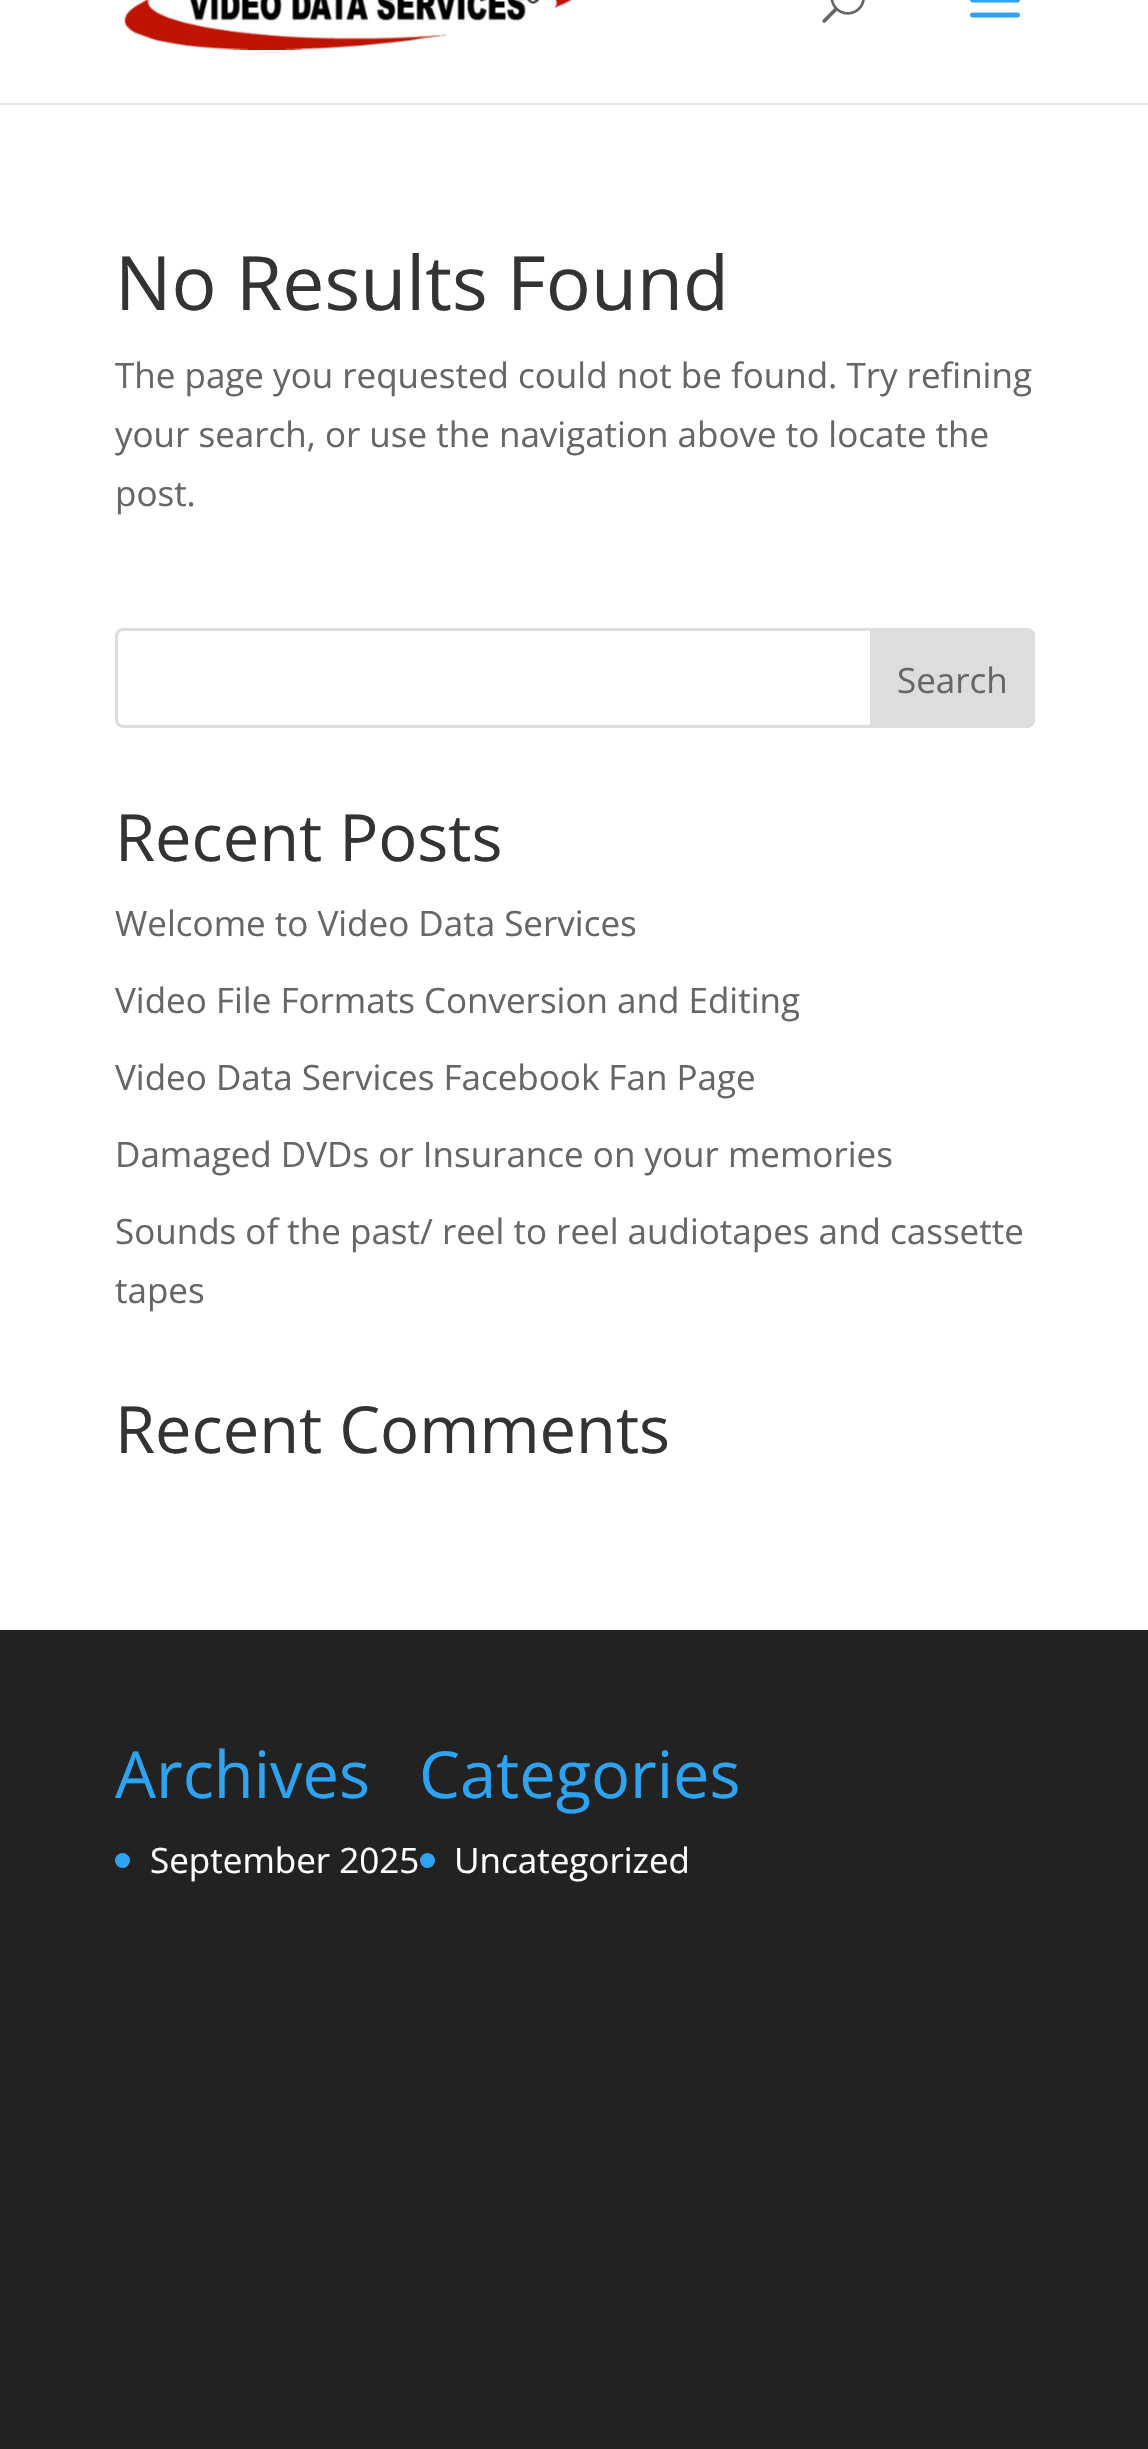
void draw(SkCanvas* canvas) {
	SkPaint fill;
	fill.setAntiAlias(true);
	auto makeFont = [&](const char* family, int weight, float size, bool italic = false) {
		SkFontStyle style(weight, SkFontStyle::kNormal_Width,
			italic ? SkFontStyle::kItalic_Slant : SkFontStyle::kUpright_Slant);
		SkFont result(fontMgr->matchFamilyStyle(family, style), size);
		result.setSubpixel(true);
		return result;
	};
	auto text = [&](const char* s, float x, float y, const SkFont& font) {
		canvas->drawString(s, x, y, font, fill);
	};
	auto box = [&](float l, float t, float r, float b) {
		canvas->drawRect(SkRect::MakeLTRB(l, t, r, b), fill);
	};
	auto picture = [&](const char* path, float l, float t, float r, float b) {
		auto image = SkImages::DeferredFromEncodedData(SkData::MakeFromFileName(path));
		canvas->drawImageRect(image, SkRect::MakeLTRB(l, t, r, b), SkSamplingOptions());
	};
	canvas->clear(0xFFFFFFFF);
	fill.setColor(0xFFE6E6E6);
	box(0, 103, 1148, 105);
	picture("image0.png", 124, 0, 573, 50);
	picture("image1.png", 822, 0, 865, 23);
	picture("image2.png", 970, 0, 1020, 18);
	fill.setStyle(SkPaint::kStroke_Style);
	fill.setStrokeWidth(3);
	fill.setColor(0xFFDDDDDD);
	canvas->drawRoundRect(SkRect::MakeLTRB(116.5f, 629.5f, 1033.5f, 726.5f), 6.5f, 6.5f, fill);
	fill.setStyle(SkPaint::kFill_Style);
	canvas->drawPath(SkPathBuilder().moveTo(871.5f, 629.5f).lineTo(1027, 629.5f).cubicTo(1030.5f, 629.5f, 1033.5f, 632.5f, 1033.5f, 636).lineTo(1033.5f, 720).cubicTo(1033.5f, 723.5f, 1030.5f, 726.5f, 1027, 726.5f).lineTo(871.5f, 726.5f).close().detach(), fill);
	fill.setStyle(SkPaint::kStroke_Style);
	canvas->drawPath(SkPathBuilder().moveTo(871.5f, 629.5f).lineTo(1027, 629.5f).cubicTo(1030.5f, 629.5f, 1033.5f, 632.5f, 1033.5f, 636).lineTo(1033.5f, 720).cubicTo(1033.5f, 723.5f, 1030.5f, 726.5f, 1027, 726.5f).lineTo(871.5f, 726.5f).close().detach(), fill);
	fill.setStyle(SkPaint::kFill_Style);
	fill.setColor(0xFF222222);
	box(0, 1630, 1148, 2449);
	fill.setColor(0xFF2EA3F2);
	canvas->drawCircle(122.5f, 1860.5f, 7.5f, fill);
	canvas->drawCircle(427.5f, 1860.5f, 7.5f, fill);
	auto font1 = makeFont("Open Sans", 400, 75);
	fill.setColor(0xFF333333);
	text("No Results Found", 115, 310, font1);
	auto font2 = makeFont("Open Sans", 400, 35);
	fill.setColor(0xFF666666);
	text("The page you requested could not be found. Try refining", 115, 388, font2);
	text("your search, or use the navigation above to locate the", 115, 447, font2);
	text("post.", 115, 506, font2);
	text("Search", 897, 693, font2);
	auto font3 = makeFont("Open Sans", 400, 65);
	fill.setColor(0xFF333333);
	text("Recent Posts", 115, 861, font3);
	fill.setColor(0xFF666666);
	text("Welcome to Video Data Services", 115, 936, font2);
	text("Video File Formats Conversion and Editing", 115, 1013, font2);
	text("Video Data Services Facebook Fan Page", 115, 1090, font2);
	text("Damaged DVDs or Insurance on your memories", 115, 1167, font2);
	text("Sounds of the past/ reel to reel audiotapes and cassette", 115, 1244, font2);
	text("tapes", 115, 1303, font2);
	fill.setColor(0xFF333333);
	text("Recent Comments", 115, 1453, font3);
	fill.setColor(0xFF2EA3F2);
	text("Archives", 115, 1798, font3);
	fill.setColor(0xFFFFFFFF);
	text("September 2025", 150, 1873, font2);
	fill.setColor(0xFF2EA3F2);
	text("Categories", 419, 1798, font3);
	fill.setColor(0xFFFFFFFF);
	text("Uncategorized", 454, 1873, font2);
}
